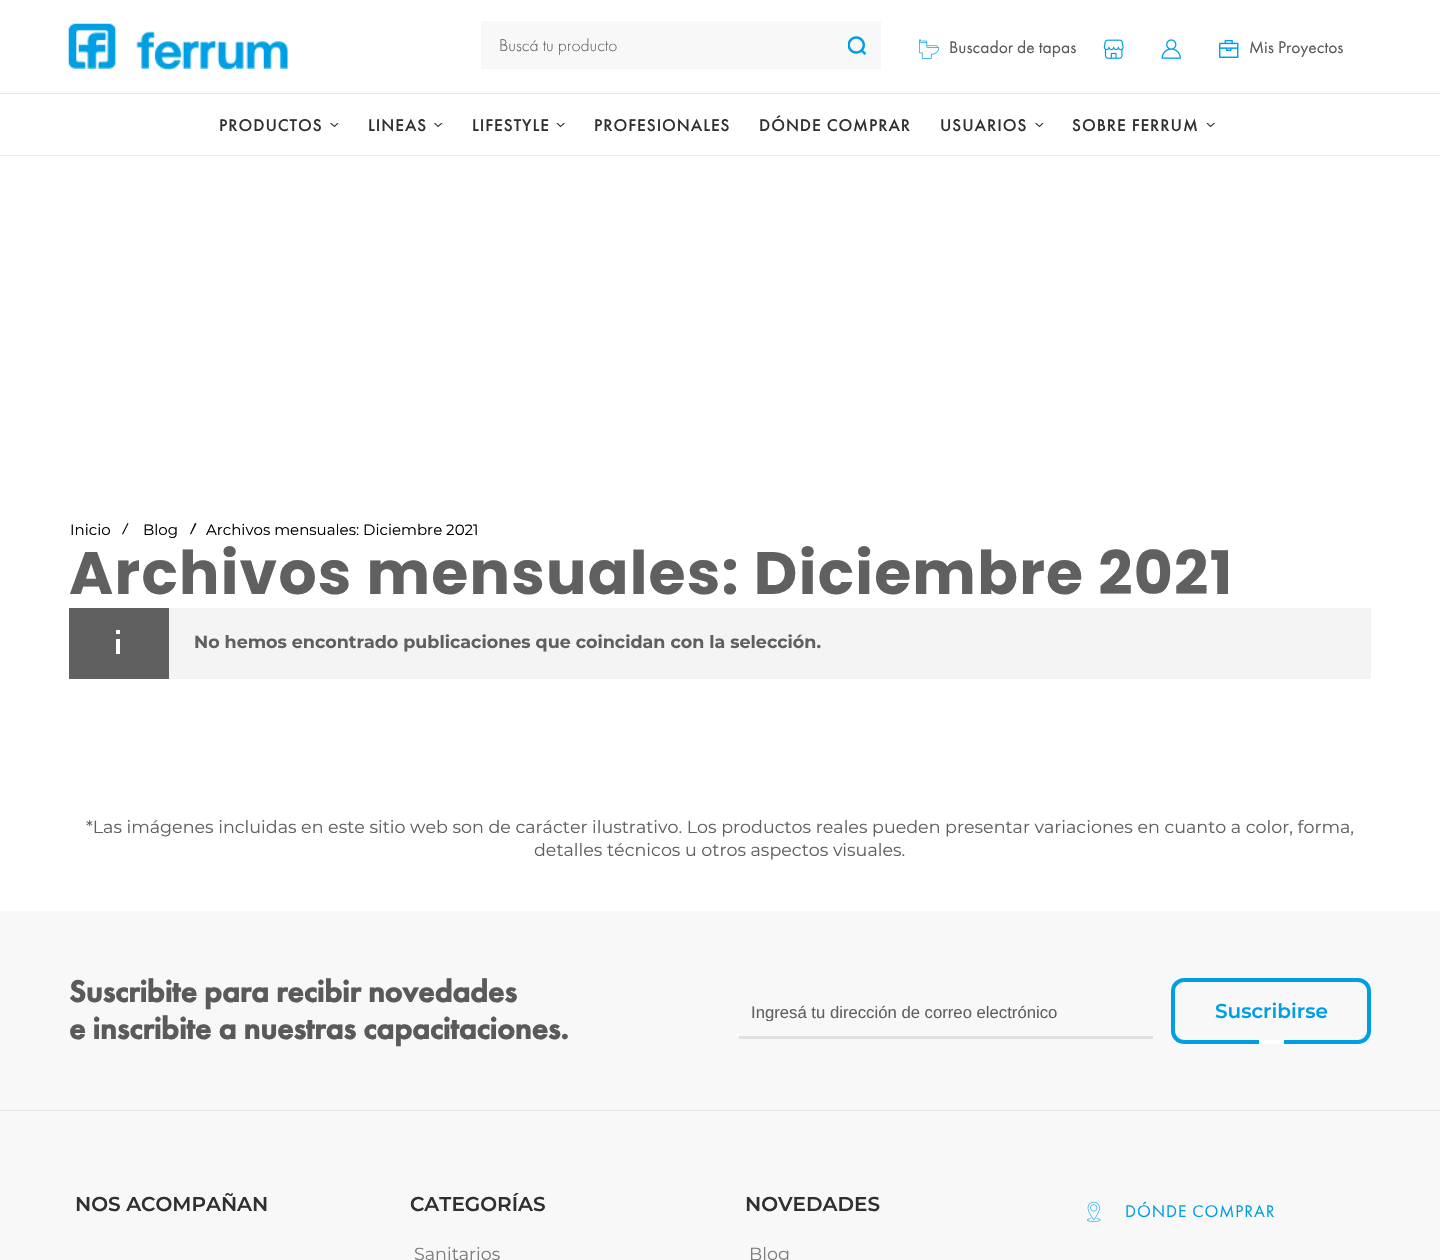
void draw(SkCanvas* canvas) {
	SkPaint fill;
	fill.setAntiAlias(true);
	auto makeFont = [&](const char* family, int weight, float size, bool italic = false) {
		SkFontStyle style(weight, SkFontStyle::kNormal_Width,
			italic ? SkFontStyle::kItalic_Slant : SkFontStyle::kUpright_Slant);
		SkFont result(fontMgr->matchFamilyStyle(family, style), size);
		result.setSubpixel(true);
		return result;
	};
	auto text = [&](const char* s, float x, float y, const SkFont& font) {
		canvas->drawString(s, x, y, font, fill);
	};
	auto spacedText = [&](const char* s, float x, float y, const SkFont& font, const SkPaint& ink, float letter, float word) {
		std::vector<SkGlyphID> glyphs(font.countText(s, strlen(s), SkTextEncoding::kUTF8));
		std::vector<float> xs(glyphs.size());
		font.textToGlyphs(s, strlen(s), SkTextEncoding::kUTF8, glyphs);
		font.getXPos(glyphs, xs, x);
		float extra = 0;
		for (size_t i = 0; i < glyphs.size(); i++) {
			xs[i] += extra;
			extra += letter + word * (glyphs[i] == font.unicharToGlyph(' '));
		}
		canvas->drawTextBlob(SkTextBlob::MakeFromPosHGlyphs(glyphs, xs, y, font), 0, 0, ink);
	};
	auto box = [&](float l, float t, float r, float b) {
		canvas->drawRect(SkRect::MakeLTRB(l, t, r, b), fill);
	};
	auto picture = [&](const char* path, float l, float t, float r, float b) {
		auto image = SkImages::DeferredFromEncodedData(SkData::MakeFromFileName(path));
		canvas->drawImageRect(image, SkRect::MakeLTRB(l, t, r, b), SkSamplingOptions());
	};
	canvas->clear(0xFFFFFFFF);
	fill.setColor(0xFFEDEDED);
	box(0, 155, 1440, 156);
	picture("image0.png", 68, 23, 288, 70);
	fill.setColor(0xFFF8F8F8);
	box(481, 21, 881, 69);
	picture("image1.png", 848, 36, 866, 55);
	picture("image2.png", 919, 39, 940, 59);
	picture("image3.png", 1103, 39, 1124, 59);
	picture("image4.png", 1161, 39, 1181, 59);
	picture("image5.png", 1219, 39, 1239, 58);
	fill.setColor(0xFFE8E5E5);
	box(0, 93, 1440, 94);
	canvas->save();
	canvas->clipRect(SkRect::MakeLTRB(330, 123, 339, 128));
	fill.setStyle(SkPaint::kStroke_Style);
	fill.setStrokeWidth(1.2f);
	fill.setColor(0xFF3D3D3D);
	canvas->drawPath(SkPathBuilder().moveTo(330.5f, 123).lineTo(334.5f, 126.5f).lineTo(338, 123).detach(), fill);
	canvas->restore();
	canvas->save();
	canvas->clipRect(SkRect::MakeLTRB(434, 123, 443, 128));
	canvas->drawPath(SkPathBuilder().moveTo(434.5f, 123).lineTo(438, 126.5f).lineTo(442, 123).detach(), fill);
	canvas->restore();
	canvas->save();
	canvas->clipRect(SkRect::MakeLTRB(556, 123, 565, 128));
	canvas->drawPath(SkPathBuilder().moveTo(557, 123).lineTo(560.5f, 126.5f).lineTo(564.5f, 123).detach(), fill);
	canvas->restore();
	canvas->save();
	canvas->clipRect(SkRect::MakeLTRB(1035, 123, 1044, 128));
	canvas->drawPath(SkPathBuilder().moveTo(1035.5f, 123).lineTo(1039.5f, 126.5f).lineTo(1043, 123).detach(), fill);
	canvas->restore();
	canvas->save();
	canvas->clipRect(SkRect::MakeLTRB(1206, 123, 1215, 128));
	canvas->drawPath(SkPathBuilder().moveTo(1207, 123).lineTo(1210.5f, 126.5f).lineTo(1214.5f, 123).detach(), fill);
	canvas->restore();
	fill.setStyle(SkPaint::kFill_Style);
	fill.setColor(0xFF000000);
	canvas->drawPath(SkPathBuilder().moveTo(127.5f, 523).lineTo(128.5f, 523.5f).lineTo(123, 534.5f).lineTo(122, 534).close().detach(), fill);
	canvas->drawPath(SkPathBuilder().moveTo(195, 523).lineTo(196.5f, 523.5f).lineTo(191, 534.5f).lineTo(190, 534).close().detach(), fill);
	fill.setColor(0xFFF4F4F4);
	box(169, 608, 1371, 679);
	fill.setColor(0xFF606060);
	box(69, 608, 169, 679);
	fill.setColor(0xFFFFFFFF);
	box(116, 630, 120, 634);
	box(116, 639, 120, 654);
	fill.setColor(0xFFF8F8F8);
	box(0, 1111, 1440, 1260);
	box(0, 911, 1440, 1110);
	fill.setColor(0xFFE8E5E5);
	box(0, 1110, 1440, 1111);
	fill.setColor(0xFFE0E0E0);
	box(739, 1036, 1153, 1039);
	fill.setStyle(SkPaint::kStroke_Style);
	fill.setStrokeWidth(4);
	fill.setColor(0xFF009FE3);
	canvas->drawRoundRect(SkRect::MakeLTRB(1173, 980, 1369, 1042), 11, 11, fill);
	fill.setStyle(SkPaint::kFill_Style);
	fill.setColor(0xFFFFFFFF);
	box(1259, 1040, 1284, 1044);
	picture("image6.png", 1087, 1201, 1101, 1222);
	auto font1 = makeFont("Futura PT", 300, 17.5f);
	fill.setColor(0xFF606060);
	text("Buscá tu producto", 499, 51, font1);
	auto font2 = makeFont("Futura PT", 400, 17.5f);
	fill.setColor(0xFF5A5A5A);
	text("Buscador de tapas", 949, 53, font2);
	text("Mis Proyectos", 1249, 53, font2);
	auto font3 = makeFont("Futura PT", 500, 17.5f);
	fill.setColor(0xFF303030);
	spacedText("PRODUCTOS", 219, 131, font3, fill, 0.9f, 0);
	spacedText("LINEAS", 368, 131, font3, fill, 0.9f, 0);
	spacedText("LIFESTYLE", 472, 131, font3, fill, 0.9f, 0);
	spacedText("PROFESIONALES", 594, 131, font3, fill, 0.9f, 0);
	spacedText("DÓNDE COMPRAR", 759, 131, font3, fill, 0.9f, 0);
	spacedText("USUARIOS", 940, 131, font3, fill, 0.9f, 0);
	spacedText("SOBRE FERRUM", 1072, 131, font3, fill, 0.9f, 0);
	auto font4 = makeFont("Montserrat", 400, 15);
	fill.setColor(0xFF000000);
	text("Inicio", 70, 535, font4);
	text("Blog", 143, 535, font4);
	text("Archivos mensuales: Diciembre 2021", 206, 535, font4);
	auto font5 = makeFont("Poppins", 700, 60);
	fill.setColor(0xFF606060);
	spacedText("Archivos mensuales: Diciembre 2021", 69, 594, font5, fill, 1.25f, 0);
	auto font6 = makeFont("Montserrat", 700, 17.5f);
	text("No hemos encontrado publicaciones que coincidan con la selección.", 194, 648, font6);
	auto font7 = makeFont("Montserrat", 400, 17.5f);
	text("*Las imágenes incluidas en este sitio web son de carácter ilustrativo. Los productos reales pueden presentar variaciones en cuanto a color, forma,", 86, 833, font7);
	text("detalles técnicos u otros aspectos visuales.", 534, 856, font7);
	auto font8 = makeFont("Futura PT", 700, 31.25f);
	fill.setColor(0xFF5A5A5A);
	text("Suscribite para recibir novedades", 69, 1002, font8);
	text("e inscribite a nuestras capacitaciones.", 69, 1039, font8);
	canvas->save();
	canvas->clipRect(SkRect::MakeLTRB(751, 1003, 1153, 1021));
	auto font9 = makeFont("Liberation Sans", 400, 16.7f);
	fill.setColor(0xFF606060);
	text("Ingresá tu dirección de correo electrónico", 751, 1018, font9);
	canvas->restore();
	auto font10 = makeFont("Montserrat", 600, 20);
	fill.setColor(0xFF009FE3);
	text("Suscribirse", 1215, 1018, font10);
	fill.setColor(0xFF303030);
	text("NOS ACOMPAÑAN", 75, 1211, font10);
	text("CATEGORÍAS", 410, 1211, font10);
	fill.setColor(0xFF7D7D7D);
	text("Sanitarios", 414, 1260, font7);
	fill.setColor(0xFF303030);
	text("NOVEDADES", 745, 1211, font10);
	fill.setColor(0xFF7D7D7D);
	text("Blog", 749, 1260, font7);
	fill.setColor(0xFF009FE3);
	spacedText("DÓNDE COMPRAR", 1125, 1217, font2, fill, 0.9f, 0);
}
